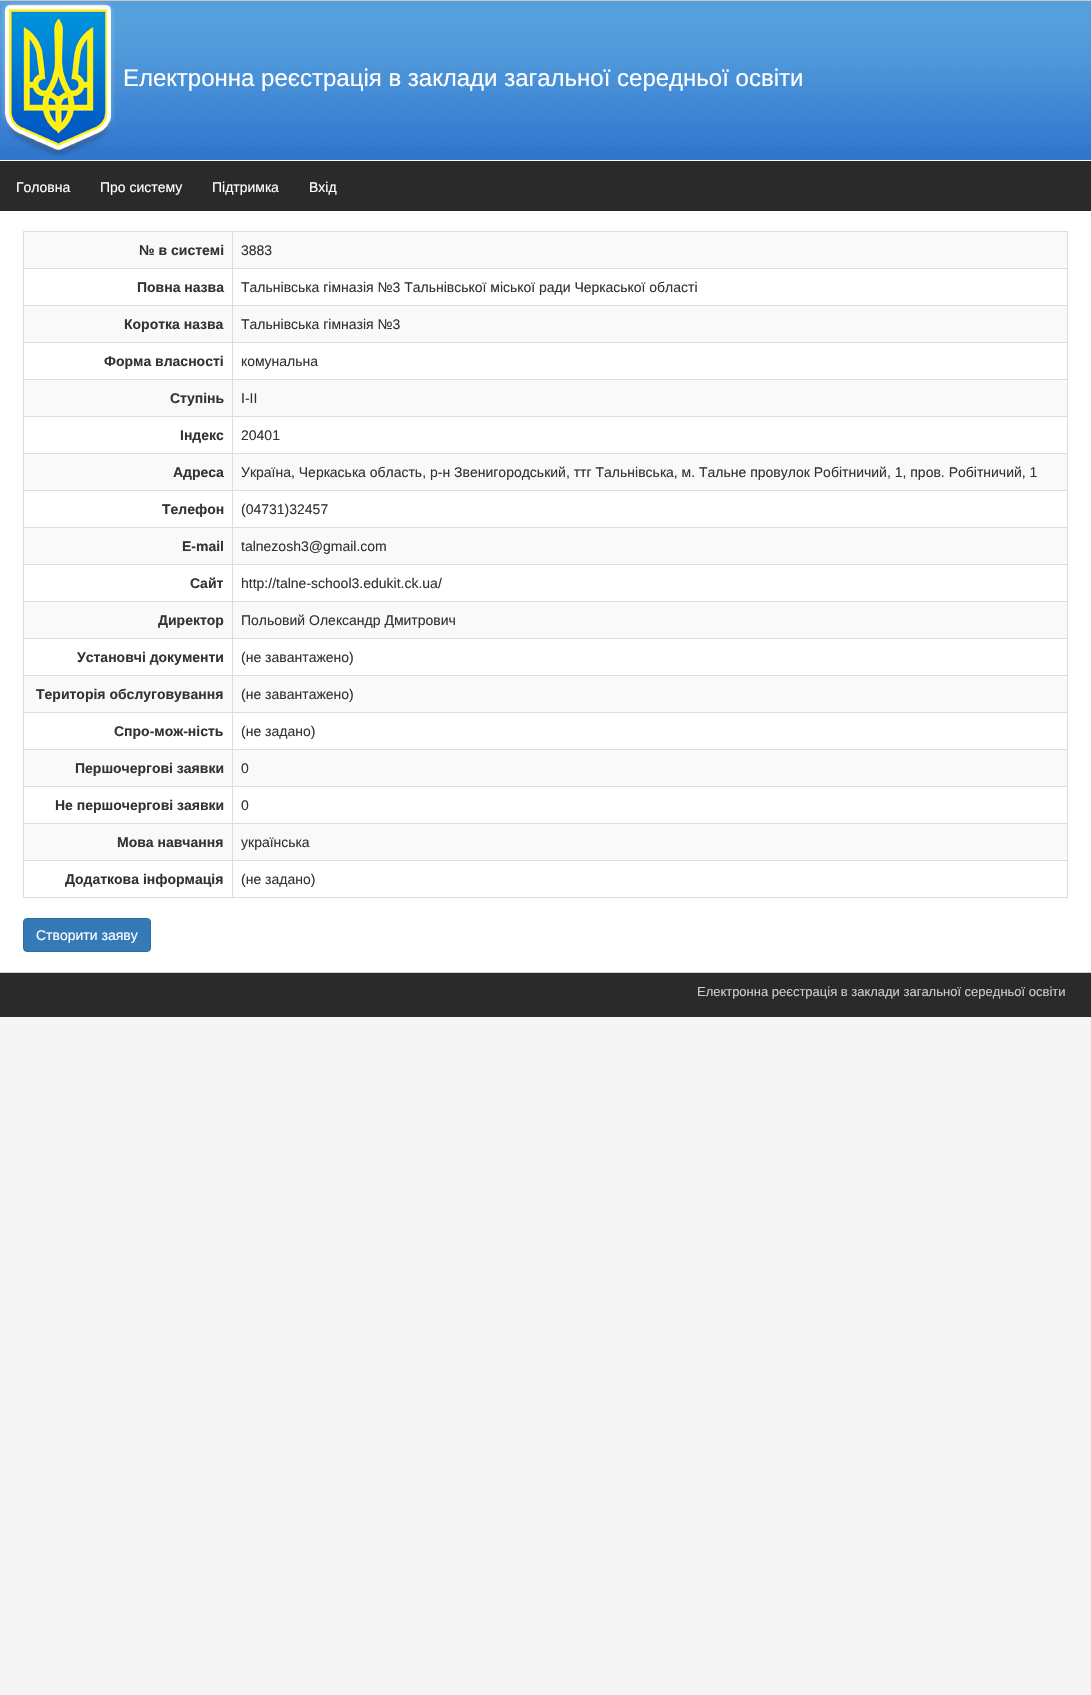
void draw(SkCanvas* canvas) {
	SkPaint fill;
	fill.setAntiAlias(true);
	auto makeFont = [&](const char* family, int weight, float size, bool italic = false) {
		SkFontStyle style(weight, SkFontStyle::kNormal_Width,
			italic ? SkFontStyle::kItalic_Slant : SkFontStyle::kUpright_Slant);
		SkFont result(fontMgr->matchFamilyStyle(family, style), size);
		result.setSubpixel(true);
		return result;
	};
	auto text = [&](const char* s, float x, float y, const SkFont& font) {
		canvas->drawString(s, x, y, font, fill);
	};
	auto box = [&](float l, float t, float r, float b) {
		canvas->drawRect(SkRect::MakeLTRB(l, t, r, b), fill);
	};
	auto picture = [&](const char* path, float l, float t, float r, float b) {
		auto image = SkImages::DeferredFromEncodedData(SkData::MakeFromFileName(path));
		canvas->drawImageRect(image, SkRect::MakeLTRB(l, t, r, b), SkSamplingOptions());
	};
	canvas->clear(0xFFF5F5F5);
	fill.setColor(0xFF3177CE);
	box(0, 146, 1091, 160);
	picture("image0.png", 0, 0, 1091, 146);
	picture("image1.png", 1, 1, 115, 158);
	fill.setColor(0xFF2A2A2A);
	box(0, 161, 1091, 211);
	fill.setColor(0xFFFFFFFF);
	box(0, 160, 1091, 161);
	box(0, 211, 1091, 972);
	fill.setColor(0xFFCECECE);
	box(0, 972, 1091, 973);
	fill.setColor(0xFFDDDDDD);
	box(23, 231, 1068, 232);
	box(1067, 231, 1068, 898);
	box(23, 897, 1068, 898);
	box(23, 231, 24, 898);
	fill.setColor(0xFFF9F9F9);
	box(24, 232, 1067, 268);
	fill.setColor(0xFFDDDDDD);
	box(232, 268, 1068, 269);
	box(232, 305, 1068, 306);
	fill.setColor(0xFFF9F9F9);
	box(24, 306, 1067, 342);
	fill.setColor(0xFFDDDDDD);
	box(232, 342, 1068, 343);
	box(232, 379, 1068, 380);
	fill.setColor(0xFFF9F9F9);
	box(24, 380, 1067, 416);
	fill.setColor(0xFFDDDDDD);
	box(232, 416, 1068, 417);
	box(232, 453, 1068, 454);
	fill.setColor(0xFFF9F9F9);
	box(24, 454, 1067, 490);
	fill.setColor(0xFFDDDDDD);
	box(232, 490, 1068, 491);
	box(232, 527, 1068, 528);
	fill.setColor(0xFFF9F9F9);
	box(24, 528, 1067, 564);
	fill.setColor(0xFFDDDDDD);
	box(232, 564, 1068, 565);
	box(232, 601, 1068, 602);
	fill.setColor(0xFFF9F9F9);
	box(24, 602, 1067, 638);
	fill.setColor(0xFFDDDDDD);
	box(232, 638, 1068, 639);
	box(232, 675, 1068, 676);
	fill.setColor(0xFFF9F9F9);
	box(24, 676, 1067, 712);
	fill.setColor(0xFFDDDDDD);
	box(232, 712, 1068, 713);
	box(232, 749, 1068, 750);
	fill.setColor(0xFFF9F9F9);
	box(24, 750, 1067, 786);
	fill.setColor(0xFFDDDDDD);
	box(232, 786, 1068, 787);
	box(232, 823, 1068, 824);
	fill.setColor(0xFFF9F9F9);
	box(24, 824, 1067, 860);
	fill.setColor(0xFFDDDDDD);
	box(232, 860, 1068, 861);
	box(232, 860, 233, 898);
	box(23, 860, 233, 861);
	box(232, 823, 233, 861);
	box(23, 823, 233, 824);
	box(232, 786, 233, 824);
	box(23, 786, 233, 787);
	box(232, 749, 233, 787);
	box(23, 749, 233, 750);
	box(232, 712, 233, 750);
	box(23, 712, 233, 713);
	box(232, 675, 233, 713);
	box(23, 675, 233, 676);
	box(232, 638, 233, 676);
	box(23, 638, 233, 639);
	box(232, 601, 233, 639);
	box(23, 601, 233, 602);
	box(232, 564, 233, 602);
	box(23, 564, 233, 565);
	box(232, 527, 233, 565);
	box(23, 527, 233, 528);
	box(232, 490, 233, 528);
	box(23, 490, 233, 491);
	box(232, 453, 233, 491);
	box(23, 453, 233, 454);
	box(232, 416, 233, 454);
	box(23, 416, 233, 417);
	box(232, 379, 233, 417);
	box(23, 379, 233, 380);
	box(232, 342, 233, 380);
	box(23, 342, 233, 343);
	box(232, 305, 233, 343);
	box(23, 305, 233, 306);
	box(232, 268, 233, 306);
	box(23, 268, 233, 269);
	box(232, 231, 233, 269);
	fill.setColor(0xFF337AB7);
	canvas->drawRoundRect(SkRect::MakeLTRB(23.5f, 918.5f, 150.5f, 951.5f), 3.5f, 3.5f, fill);
	fill.setStyle(SkPaint::kStroke_Style);
	fill.setStrokeWidth(1);
	fill.setColor(0xFF2E6DA4);
	canvas->drawRoundRect(SkRect::MakeLTRB(23.5f, 918.5f, 150.5f, 951.5f), 3.5f, 3.5f, fill);
	fill.setStyle(SkPaint::kFill_Style);
	fill.setColor(0xFF2A2A2A);
	box(0, 973, 1091, 1017);
	auto font1 = makeFont("Liberation Sans", 400, 24);
	fill.setColor(0xFFFFFFFF);
	text("Електронна реєстрація в заклади загальної середньої освіти", 123, 86, font1);
	auto font2 = makeFont("Liberation Sans", 400, 14);
	text("Головна", 16, 192, font2);
	text("Про систему", 100, 192, font2);
	text("Підтримка", 212, 192, font2);
	text("Вхід", 309, 192, font2);
	auto font3 = makeFont("Liberation Sans", 700, 14);
	fill.setColor(0xFF333333);
	text("№ в системі", 139, 255, font3);
	text("3883", 241, 255, font2);
	text("Повна назва", 137, 292, font3);
	text("Тальнівська гімназія №3 Тальнівської міської ради Черкаської області", 241, 292, font2);
	text("Коротка назва", 124, 329, font3);
	text("Тальнівська гімназія №3", 241, 329, font2);
	text("Форма власності", 104, 366, font3);
	text("комунальна", 241, 366, font2);
	text("Ступінь", 170, 403, font3);
	text("I-II", 241, 403, font2);
	text("Індекс", 180, 440, font3);
	text("20401", 241, 440, font2);
	text("Адреса", 173, 477, font3);
	text("Україна, Черкаська область, р-н Звенигородський, ттг Тальнівська, м. Тальне провулок Робітничий, 1, пров. Робітничий, 1", 241, 477, font2);
	text("Телефон", 162, 514, font3);
	text("(04731)32457", 241, 514, font2);
	text("E-mail", 182, 551, font3);
	text("talnezosh3@gmail.com", 241, 551, font2);
	text("Сайт", 190, 588, font3);
	text("http://talne-school3.edukit.ck.ua/", 241, 588, font2);
	text("Директор", 158, 625, font3);
	text("Польовий Олександр Дмитрович", 241, 625, font2);
	text("Установчі документи", 77, 662, font3);
	text("(не завантажено)", 241, 662, font2);
	text("Територія обслуговування", 36, 699, font3);
	text("(не завантажено)", 241, 699, font2);
	text("Спро-мож-ність", 114, 736, font3);
	text("(не задано)", 241, 736, font2);
	text("Першочергові заявки", 75, 773, font3);
	text("0", 241, 773, font2);
	text("Не першочергові заявки", 55, 810, font3);
	text("0", 241, 810, font2);
	text("Мова навчання", 117, 847, font3);
	text("українська", 241, 847, font2);
	text("Додаткова інформація", 65, 884, font3);
	text("(не задано)", 241, 884, font2);
	fill.setColor(0xFFFFFFFF);
	text("Створити заяву", 36, 940, font2);
	auto font4 = makeFont("Liberation Sans", 400, 13);
	fill.setColor(0xFFCCCCCC);
	text("Електронна реєстрація в заклади загальної середньої освіти", 697, 996, font4);
}
